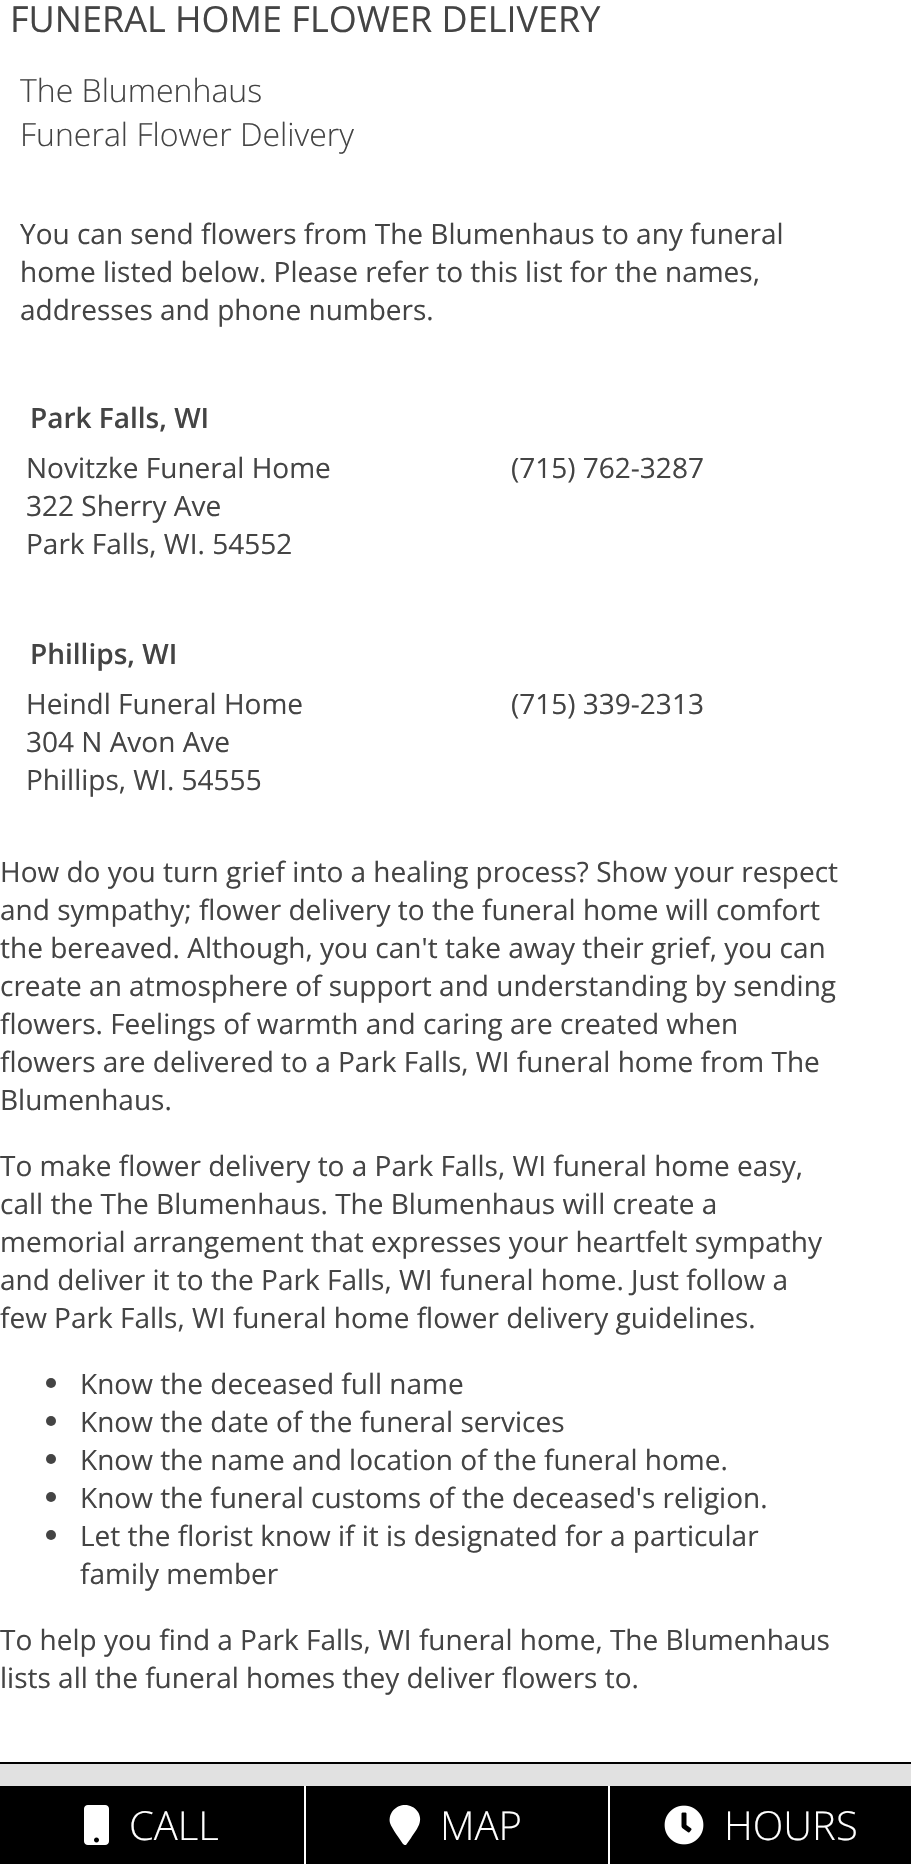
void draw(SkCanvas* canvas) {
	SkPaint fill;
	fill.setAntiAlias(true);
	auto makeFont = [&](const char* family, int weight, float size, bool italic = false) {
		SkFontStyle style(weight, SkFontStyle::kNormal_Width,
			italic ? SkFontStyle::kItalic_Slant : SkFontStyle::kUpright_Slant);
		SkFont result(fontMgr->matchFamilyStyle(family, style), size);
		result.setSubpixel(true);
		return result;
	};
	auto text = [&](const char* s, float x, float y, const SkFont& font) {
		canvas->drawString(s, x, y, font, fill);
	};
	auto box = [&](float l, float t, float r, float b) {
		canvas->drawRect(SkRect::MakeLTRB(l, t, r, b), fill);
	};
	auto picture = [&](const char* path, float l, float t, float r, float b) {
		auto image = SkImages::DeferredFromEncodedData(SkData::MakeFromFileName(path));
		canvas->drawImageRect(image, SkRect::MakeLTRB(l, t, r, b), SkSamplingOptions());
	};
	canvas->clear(0xFFFFFFFF);
	fill.setColor(0xFF444444);
	canvas->drawCircle(51, 1383, 5, fill);
	canvas->drawCircle(51, 1421, 5, fill);
	canvas->drawCircle(51, 1459, 5, fill);
	canvas->drawCircle(51, 1497, 5, fill);
	canvas->drawCircle(51, 1535, 5, fill);
	fill.setColor(0xFFE1E1E1);
	box(0, 1764, 911, 1786);
	fill.setColor(0xFF000000);
	box(0, 1762, 911, 1764);
	box(0, 1786, 304, 1864);
	picture("image0.png", 84, 1805, 109, 1845);
	box(306, 1786, 608, 1864);
	fill.setColor(0xFFFFFFFF);
	canvas->drawPath(SkPathBuilder().moveTo(403, 1844).cubicTo(400, 1839, 392, 1829, 390, 1823).cubicTo(387, 1807, 408, 1798, 418, 1812).cubicTo(424, 1822, 416, 1830, 411, 1838).lineTo(406, 1845).cubicTo(405, 1845, 404, 1845, 403, 1844).close().detach(), fill);
	fill.setColor(0xFF000000);
	box(610, 1786, 911, 1864);
	picture("image1.png", 664, 1805, 704, 1845);
	auto font1 = makeFont("Open Sans", 400, 36);
	fill.setColor(0xFF444444);
	text("FUNERAL HOME FLOWER DELIVERY", 10, 32, font1);
	auto font2 = makeFont("Open Sans", 300, 32);
	text("The Blumenhaus", 20, 102, font2);
	text("Funeral Flower Delivery", 20, 146, font2);
	auto font3 = makeFont("Open Sans", 400, 28);
	text("You can send flowers from The Blumenhaus to any funeral", 20, 244, font3);
	text("home listed below. Please refer to this list for the names,", 20, 282, font3);
	text("addresses and phone numbers.", 20, 320, font3);
	auto font4 = makeFont("Open Sans", 600, 28);
	text("Park Falls, WI", 30, 428, font4);
	text("Novitzke Funeral Home", 26, 478, font3);
	text("322 Sherry Ave", 26, 516, font3);
	text("Park Falls, WI. 54552", 26, 554, font3);
	text("(715) 762-3287", 511, 478, font3);
	text("Phillips, WI", 30, 664, font4);
	text("Heindl Funeral Home", 26, 714, font3);
	text("304 N Avon Ave", 26, 752, font3);
	text("Phillips, WI. 54555", 26, 790, font3);
	text("(715) 339-2313", 511, 714, font3);
	text("How do you turn grief into a healing process? Show your respect", 0, 882, font3);
	text("and sympathy; flower delivery to the funeral home will comfort", 0, 920, font3);
	text("the bereaved. Although, you can't take away their grief, you can", 0, 958, font3);
	text("create an atmosphere of support and understanding by sending", 0, 996, font3);
	text("flowers. Feelings of warmth and caring are created when", 0, 1034, font3);
	text("flowers are delivered to a Park Falls, WI funeral home from The", 0, 1072, font3);
	text("Blumenhaus.", 0, 1110, font3);
	text("To make flower delivery to a Park Falls, WI funeral home easy,", 0, 1176, font3);
	text("call the The Blumenhaus. The Blumenhaus will create a", 0, 1214, font3);
	text("memorial arrangement that expresses your heartfelt sympathy", 0, 1252, font3);
	text("and deliver it to the Park Falls, WI funeral home. Just follow a", 0, 1290, font3);
	text("few Park Falls, WI funeral home flower delivery guidelines.", 0, 1328, font3);
	text("Know the deceased full name", 80, 1394, font3);
	text("Know the date of the funeral services", 80, 1432, font3);
	text("Know the name and location of the funeral home.", 80, 1470, font3);
	text("Know the funeral customs of the deceased's religion.", 80, 1508, font3);
	text("Let the florist know if it is designated for a particular", 80, 1546, font3);
	text("family member", 80, 1584, font3);
	text("To help you find a Park Falls, WI funeral home, The Blumenhaus", 0, 1650, font3);
	text("lists all the funeral homes they deliver flowers to.", 0, 1688, font3);
	auto font5 = makeFont("Open Sans", 300, 40);
	fill.setColor(0xFFFFFFFF);
	text("CALL", 129, 1840, font5);
	text("MAP", 440, 1840, font5);
	text("HOURS", 724, 1840, font5);
}
